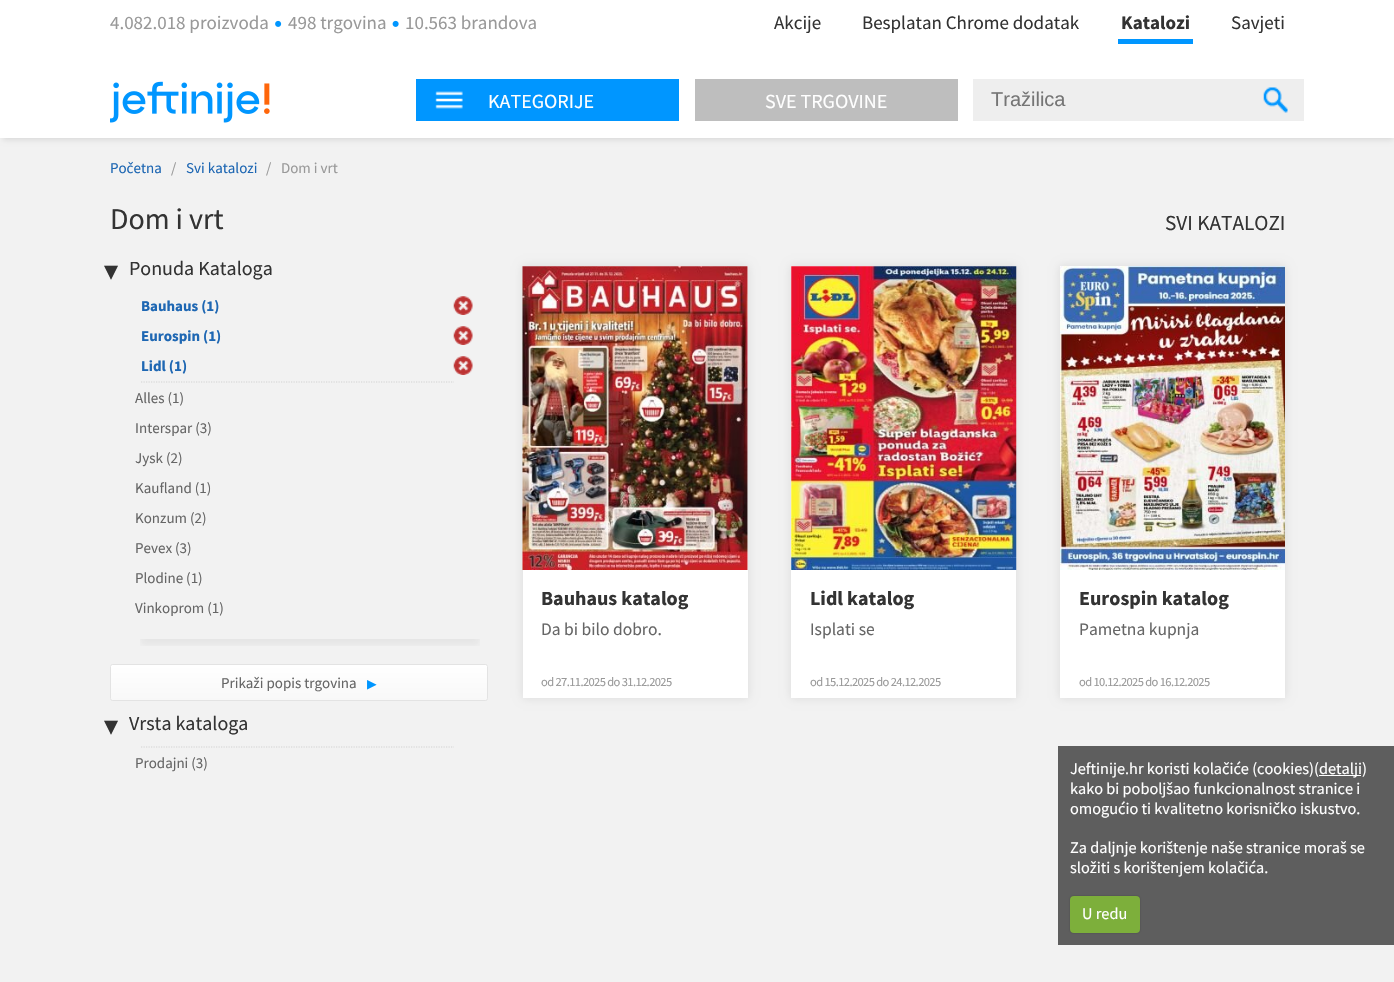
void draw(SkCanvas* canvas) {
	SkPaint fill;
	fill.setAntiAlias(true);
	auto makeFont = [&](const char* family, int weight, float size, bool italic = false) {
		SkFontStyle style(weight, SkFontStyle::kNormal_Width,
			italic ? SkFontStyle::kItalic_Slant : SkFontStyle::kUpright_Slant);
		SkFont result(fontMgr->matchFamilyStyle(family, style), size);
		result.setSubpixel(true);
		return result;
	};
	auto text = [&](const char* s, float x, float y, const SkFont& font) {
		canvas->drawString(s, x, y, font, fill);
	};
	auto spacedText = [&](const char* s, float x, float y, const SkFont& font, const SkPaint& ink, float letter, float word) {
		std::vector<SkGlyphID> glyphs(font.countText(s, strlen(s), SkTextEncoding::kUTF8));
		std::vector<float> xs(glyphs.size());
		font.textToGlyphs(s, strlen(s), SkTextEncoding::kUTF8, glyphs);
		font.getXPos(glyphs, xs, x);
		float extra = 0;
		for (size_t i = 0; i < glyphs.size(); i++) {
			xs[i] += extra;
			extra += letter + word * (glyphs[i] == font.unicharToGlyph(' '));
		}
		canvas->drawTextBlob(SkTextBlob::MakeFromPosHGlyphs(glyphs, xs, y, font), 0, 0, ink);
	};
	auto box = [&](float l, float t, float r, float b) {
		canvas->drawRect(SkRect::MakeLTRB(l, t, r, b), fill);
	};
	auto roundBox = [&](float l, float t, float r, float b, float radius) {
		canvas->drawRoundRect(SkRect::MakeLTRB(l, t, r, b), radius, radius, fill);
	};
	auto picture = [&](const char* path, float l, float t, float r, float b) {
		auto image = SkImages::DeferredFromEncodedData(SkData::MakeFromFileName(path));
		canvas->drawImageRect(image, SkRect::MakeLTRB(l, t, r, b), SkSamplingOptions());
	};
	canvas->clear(0xFFF2F2F2);
	fill.setColor(0xFF5E5E5E);
	box(1058, 746, 1394, 945);
	fill.setColor(0xFFFFFFFF);
	box(0, 0, 1394, 63);
	picture("image0.png", 275, 20, 282, 27);
	picture("image1.png", 392, 20, 399, 27);
	fill.setColor(0xFF0096FF);
	box(1118, 39, 1193, 44);
	fill.setColor(0x1A000000);
	fill.setMaskFilter(SkMaskFilter::MakeBlur(kNormal_SkBlurStyle, 2.5f));
	canvas->drawRect(SkRect::MakeLTRB(3, 70, 1393, 140), fill);
	fill.setMaskFilter(nullptr);
	fill.setColor(0xFFFFFFFF);
	box(0, 63, 1394, 138);
	picture("image2.png", 110, 81, 270, 123);
	fill.setColor(0xFF0096FF);
	box(416, 79, 679, 121);
	picture("image3.png", 435, 91, 463, 109);
	fill.setColor(0xFFBEBEBE);
	box(695, 79, 958, 121);
	fill.setColor(0xFFEEEEEE);
	box(973, 79, 1304, 121);
	picture("image4.png", 1263, 87, 1288, 113);
	fill.setStyle(SkPaint::kStroke_Style);
	fill.setStrokeWidth(1.2f);
	fill.setColor(0xFFD2D2D3);
	fill.setPathEffect(SkDashPathEffect::Make({{1.25f, 1.25f}}, 0));
	canvas->drawPath(SkPathBuilder().moveTo(141, 382).lineTo(454, 382).detach(), fill);
	fill.setPathEffect(nullptr);
	picture("image5.png", 453, 296, 473, 315);
	picture("image5.png", 453, 326, 473, 345);
	picture("image5.png", 453, 356, 473, 375);
	canvas->save();
	canvas->clipRect(SkRect::MakeLTRB(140, 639, 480, 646));
	fill.setStyle(SkPaint::kFill_Style);
	fill.setColor(0x0D000000);
	fill.setMaskFilter(SkMaskFilter::MakeBlur(kNormal_SkBlurStyle, 3));
	canvas->drawRect(SkRect::MakeLTRB(141, 401, 479, 645), fill);
	fill.setMaskFilter(nullptr);
	canvas->restore();
	canvas->save();
	canvas->clipPath(SkPathBuilder().moveTo(112.5f, 664).lineTo(485.5f, 664).cubicTo(487, 664, 488, 665, 488, 666.5f).lineTo(488, 698.5f).cubicTo(488, 700, 487, 701, 485.5f, 701).lineTo(112.5f, 701).cubicTo(111, 701, 110, 700, 110, 698.5f).lineTo(110, 666.5f).cubicTo(110, 665, 111, 664, 112.5f, 664).close().detach(), true);
	{
		const SkColor colors[] = {0xFFFFFFFF, 0xFFF8F8F8};
		const float stops[] = {0, 1};
		const SkPoint ends[] = {{299, 665}, {299, 700}};
		fill.setShader(SkGradientShader::MakeLinear(ends, colors, stops, 2, SkTileMode::kClamp));
		fill.setAlpha(255);
	}
	box(110, 665, 488, 700);
	canvas->restore();
	fill.setStyle(SkPaint::kStroke_Style);
	fill.setStrokeWidth(1);
	fill.setShader(nullptr);
	fill.setColor(0xFFE3E3E3);
	canvas->drawRoundRect(SkRect::MakeLTRB(110.5f, 664.5f, 487.5f, 700.5f), 2, 2, fill);
	fill.setStrokeWidth(1.2f);
	fill.setColor(0xFFD2D2D3);
	fill.setPathEffect(SkDashPathEffect::Make({{1.25f, 1.25f}}, 0));
	canvas->drawPath(SkPathBuilder().moveTo(141, 747).lineTo(454, 747).detach(), fill);
	fill.setPathEffect(nullptr);
	fill.setStyle(SkPaint::kFill_Style);
	fill.setColor(0x1A000000);
	fill.setMaskFilter(SkMaskFilter::MakeBlur(kNormal_SkBlurStyle, 4.5f));
	canvas->drawRect(SkRect::MakeLTRB(523, 266, 748, 698), fill);
	fill.setMaskFilter(nullptr);
	fill.setColor(0xFFFFFFFF);
	box(523, 266, 748, 698);
	picture("image6.png", 522, 266, 748, 570);
	fill.setColor(0x1A000000);
	fill.setMaskFilter(SkMaskFilter::MakeBlur(kNormal_SkBlurStyle, 4.5f));
	canvas->drawRect(SkRect::MakeLTRB(791, 266, 1016, 698), fill);
	fill.setMaskFilter(nullptr);
	fill.setColor(0xFFFFFFFF);
	box(791, 266, 1016, 698);
	picture("image7.png", 791, 266, 1017, 570);
	fill.setColor(0x1A000000);
	fill.setMaskFilter(SkMaskFilter::MakeBlur(kNormal_SkBlurStyle, 4.5f));
	canvas->drawRect(SkRect::MakeLTRB(1060, 266, 1285, 698), fill);
	fill.setMaskFilter(nullptr);
	fill.setColor(0xFFFFFFFF);
	box(1060, 266, 1285, 698);
	picture("image8.png", 1060, 266, 1285, 570);
	box(1319, 775, 1361, 776);
	fill.setColor(0x40000000);
	fill.setMaskFilter(SkMaskFilter::MakeBlur(kNormal_SkBlurStyle, 1));
	canvas->drawRoundRect(SkRect::MakeLTRB(1070, 896, 1140, 933), 4, 4, fill);
	fill.setMaskFilter(nullptr);
	fill.setColor(0xFF7DAF3B);
	roundBox(1070, 896, 1140, 933, 4);
	auto font1 = makeFont("Source Sans Pro", 400, 19);
	fill.setColor(0xFF999999);
	text("4.082.018 proizvoda", 110, 29, font1);
	text("498 trgovina", 288, 29, font1);
	text("10.563 brandova", 405, 29, font1);
	fill.setColor(0xFF333333);
	text("Akcije", 774, 29, font1);
	text("Besplatan Chrome dodatak", 862, 29, font1);
	auto font2 = makeFont("Source Sans Pro", 700, 19);
	text("Katalozi", 1121, 29, font2);
	text("Savjeti", 1231, 29, font1);
	auto font3 = makeFont("Source Sans Pro", 400, 20);
	fill.setColor(0xFFFFFFFF);
	text("KATEGORIJE", 488, 108, font3);
	text("SVE TRGOVINE", 765, 108, font3);
	auto font4 = makeFont("Liberation Sans", 400, 20);
	fill.setColor(0xFF757575);
	text("Tražilica", 991, 106, font4);
	auto font5 = makeFont("Source Sans Pro", 400, 15);
	fill.setColor(0xFF1E67B3);
	text("Početna", 110, 173, font5);
	fill.setColor(0xFF999999);
	text("/", 171, 173, font5);
	fill.setColor(0xFF1E67B3);
	text("Svi katalozi", 186, 173, font5);
	fill.setColor(0xFF999999);
	text("/", 266, 173, font5);
	text("Dom i vrt", 281, 173, font5);
	auto font6 = makeFont("Source Sans Pro", 400, 30);
	fill.setColor(0xFF333333);
	text("Dom i vrt", 110, 229, font6);
	auto font7 = makeFont("DejaVu Sans", 400, 28);
	text("▾", 104, 280, font7);
	text("Ponuda Kataloga", 129, 275, font3);
	auto font8 = makeFont("Source Sans Pro", 700, 15);
	fill.setColor(0xFF1E67B3);
	text("Bauhaus (1)", 141, 311, font8);
	text("Eurospin (1)", 141, 341, font8);
	text("Lidl (1)", 141, 371, font8);
	fill.setColor(0xFF666666);
	text("Alles (1)", 135, 403, font5);
	text("Interspar (3)", 135, 433, font5);
	text("Jysk (2)", 135, 463, font5);
	text("Kaufland (1)", 135, 493, font5);
	text("Konzum (2)", 135, 523, font5);
	text("Pevex (3)", 135, 553, font5);
	text("Plodine (1)", 135, 583, font5);
	text("Vinkoprom (1)", 135, 613, font5);
	text("Prikaži popis trgovina", 221, 688, font5);
	auto font9 = makeFont("DejaVu Sans", 400, 12.5f);
	fill.setColor(0xFF0096FF);
	text("▶", 367, 688, font9);
	fill.setColor(0xFF333333);
	text("▾", 104, 735, font7);
	text("Vrsta kataloga", 129, 730, font3);
	fill.setColor(0xFF666666);
	text("Prodajni (3)", 135, 768, font5);
	auto font10 = makeFont("Source Sans Pro", 400, 21.25f);
	fill.setColor(0xFF333333);
	text("SVI KATALOZI", 1165, 230, font10);
	auto font11 = makeFont("Source Sans Pro", 700, 20);
	text("Bauhaus katalog", 541, 605, font11);
	auto font12 = makeFont("Source Sans Pro", 400, 17.5f);
	fill.setColor(0xFF666666);
	text("Da bi bilo dobro.", 541, 635, font12);
	auto font13 = makeFont("Source Sans Pro", 400, 12.5f);
	fill.setColor(0xFF999999);
	spacedText("od 27.11.2025 do 31.12.2025", 541, 686, font13, fill, -0.6f, 0);
	fill.setColor(0xFF333333);
	text("Lidl katalog", 810, 605, font11);
	fill.setColor(0xFF666666);
	text("Isplati se", 810, 635, font12);
	fill.setColor(0xFF999999);
	spacedText("od 15.12.2025 do 24.12.2025", 810, 686, font13, fill, -0.6f, 0);
	fill.setColor(0xFF333333);
	text("Eurospin katalog", 1079, 605, font11);
	fill.setColor(0xFF666666);
	text("Pametna kupnja", 1079, 635, font12);
	fill.setColor(0xFF999999);
	spacedText("od 10.12.2025 do 16.12.2025", 1079, 686, font13, fill, -0.6f, 0);
	auto font14 = makeFont("Source Sans Pro", 400, 16.25f);
	fill.setColor(0xFFFFFFFF);
	text("Jeftinije.hr koristi kolačiće (cookies)(", 1070, 774, font14);
	text("detalji)", 1319, 774, font14);
	text("kako bi poboljšao funkcionalnost stranice i", 1070, 794, font14);
	text("omogućio ti kvalitetno korisničko iskustvo.", 1070, 814, font14);
	text("Za daljnje korištenje naše stranice moraš se", 1070, 853, font14);
	text("složiti s korištenjem kolačića.", 1070, 873, font14);
	text("U redu", 1082, 919, font14);
}
